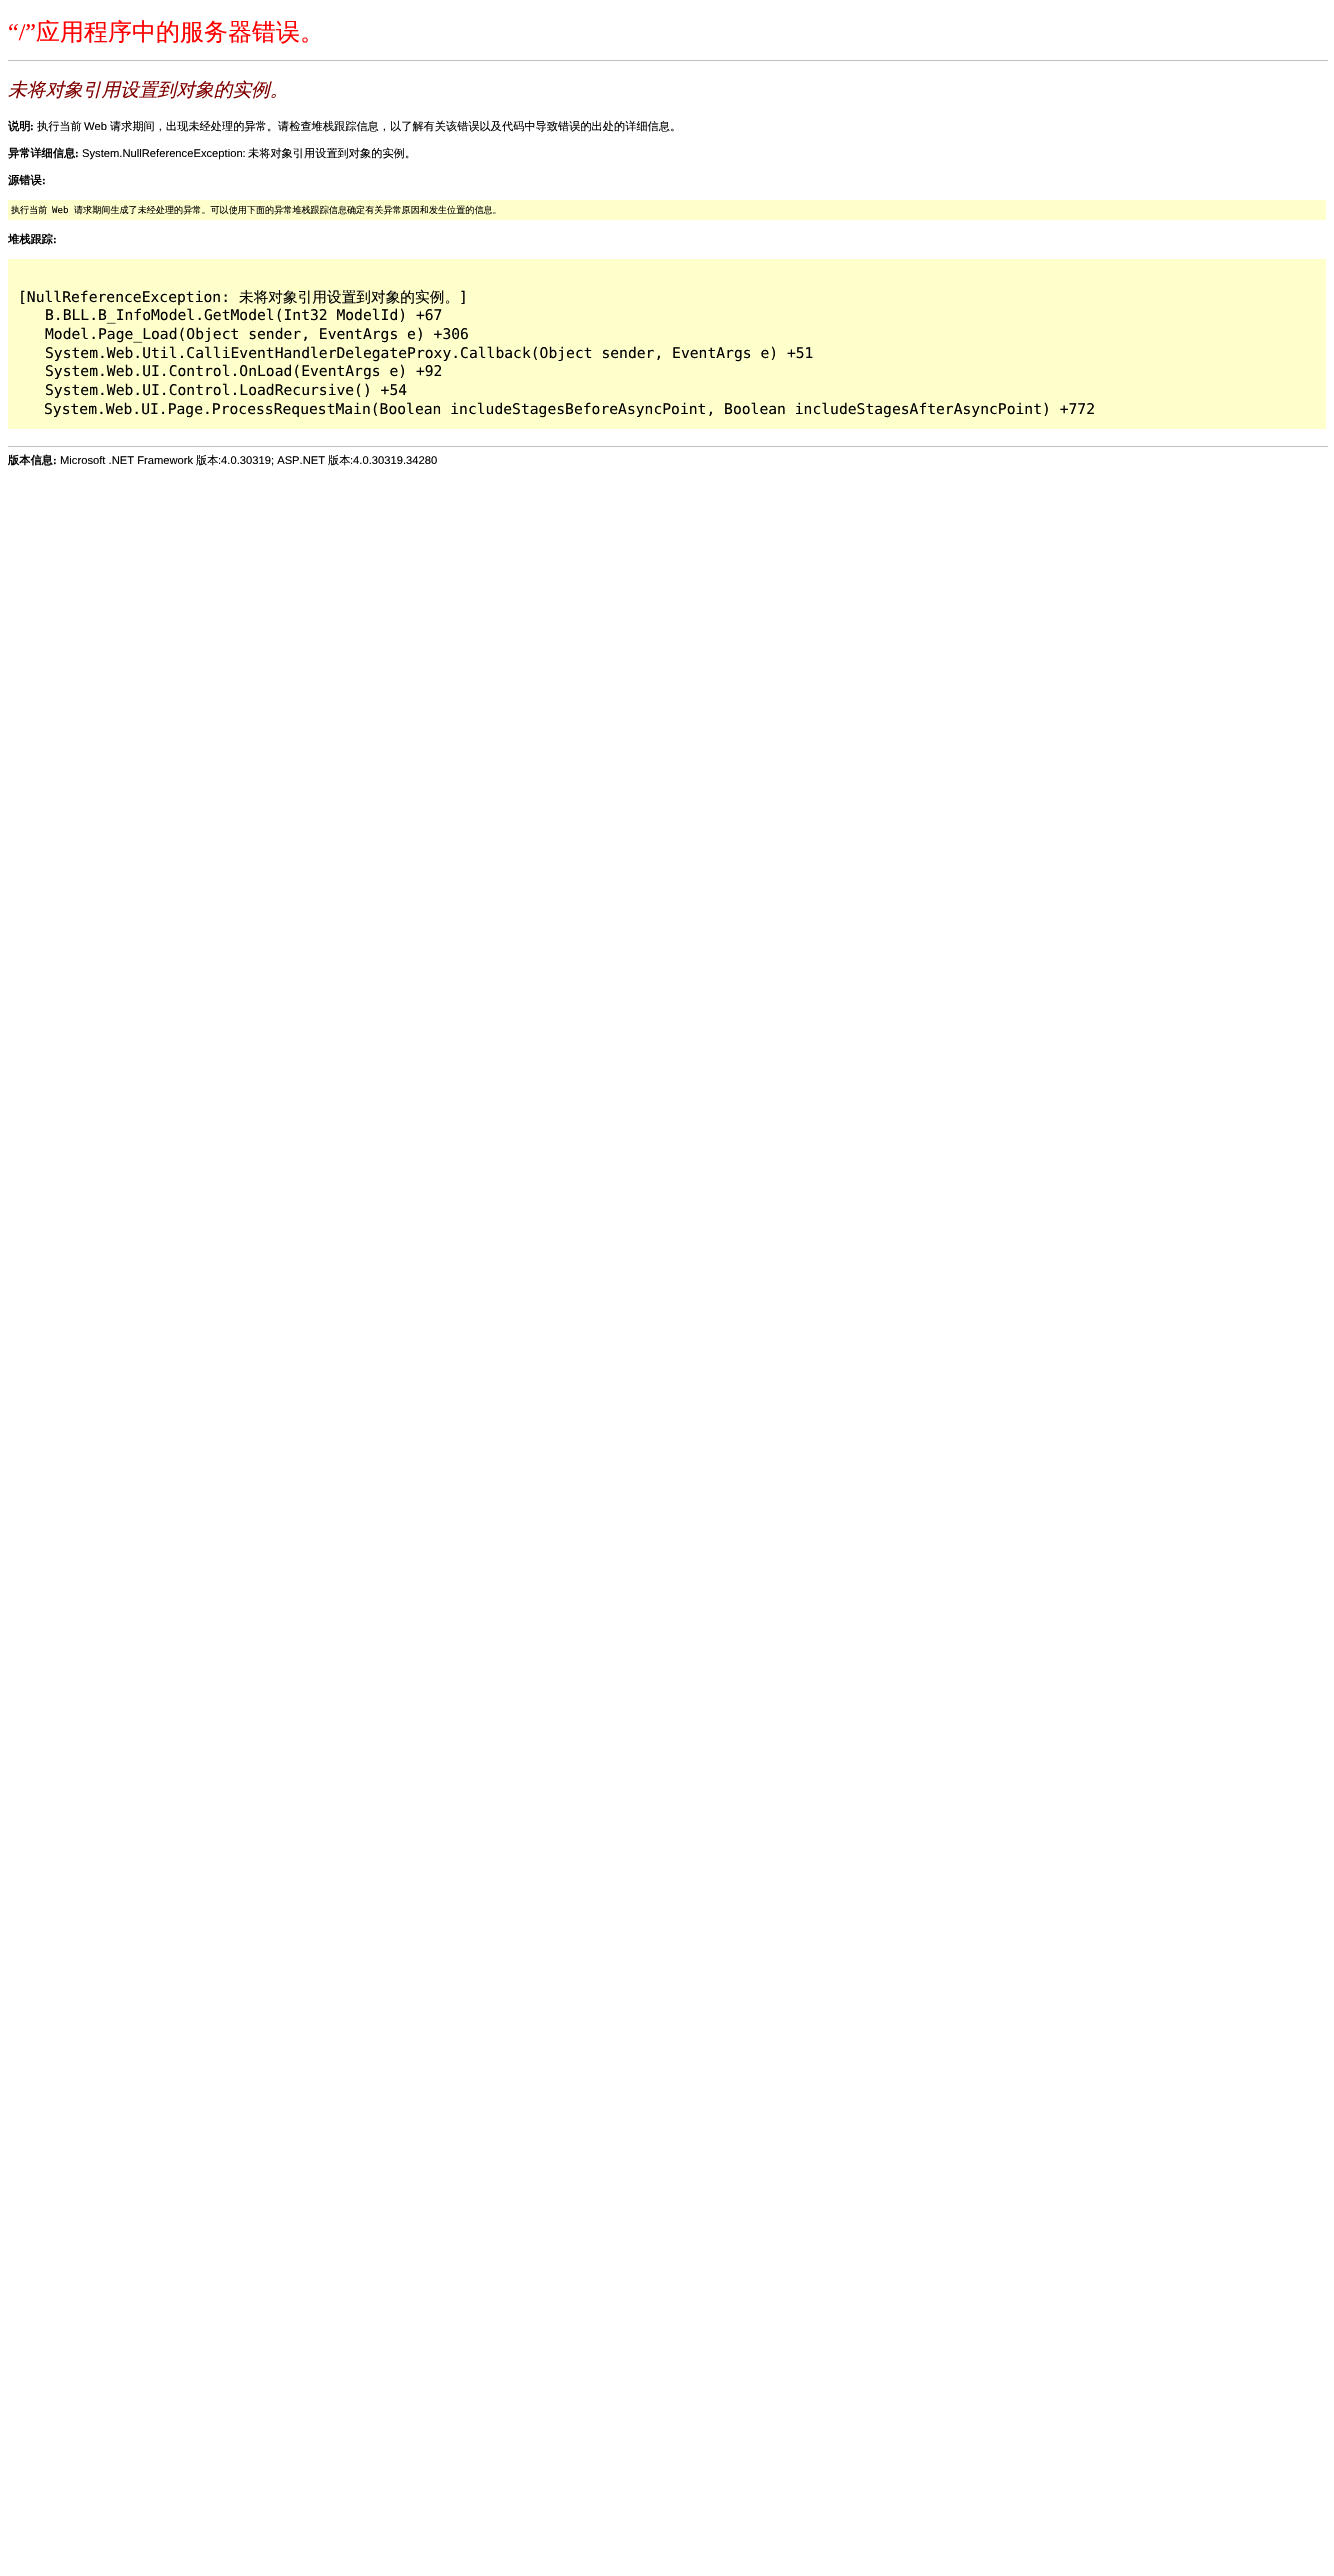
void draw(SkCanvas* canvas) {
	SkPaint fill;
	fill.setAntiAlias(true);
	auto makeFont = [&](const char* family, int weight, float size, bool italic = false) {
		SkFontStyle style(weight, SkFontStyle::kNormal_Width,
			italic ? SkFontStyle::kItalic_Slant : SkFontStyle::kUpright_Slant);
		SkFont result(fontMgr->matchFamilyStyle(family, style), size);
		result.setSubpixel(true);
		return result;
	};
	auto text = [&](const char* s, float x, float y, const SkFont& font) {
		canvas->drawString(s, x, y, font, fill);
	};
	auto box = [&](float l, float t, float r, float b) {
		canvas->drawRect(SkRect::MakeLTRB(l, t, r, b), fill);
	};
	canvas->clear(0xFFFFFFFF);
	fill.setColor(0xFFC0C0C0);
	box(8, 60, 1328, 61);
	fill.setColor(0xFFFFFFCC);
	box(8, 200, 1326, 220);
	box(8, 259, 1326, 429);
	fill.setColor(0xFFC0C0C0);
	box(8, 446, 1328, 447);
	auto font1 = makeFont("Liberation Serif", 400, 24);
	fill.setColor(0xFFFF0000);
	text("“/”", 8, 40, font1);
	auto font2 = makeFont("WenQuanYi Zen Hei", 500, 24);
	text("应用程序中的服务器错误。", 36, 40, font2);
	auto font3 = makeFont("WenQuanYi Zen Hei", 500, 18.7f, true);
	fill.setColor(0xFF800000);
	text("未将对象引用设置到对象的实例。", 8, 96, font3);
	auto font4 = makeFont("WenQuanYi Zen Hei", 700, 11.2f);
	fill.setColor(0xFF000000);
	text("说明", 8, 130, font4);
	auto font5 = makeFont("Liberation Serif", 700, 11.2f);
	text(":", 30, 130, font5);
	auto font6 = makeFont("WenQuanYi Zen Hei", 500, 11.2f);
	text("执行当前", 37, 130, font6);
	auto font7 = makeFont("Liberation Sans", 400, 11.2f);
	text("Web", 84, 130, font7);
	text("请求期间，出现未经处理的异常。请检查堆栈跟踪信息，以了解有关该错误以及代码中导致错误的出处的详细信息。", 110, 130, font6);
	text("异常详细信息", 8, 157, font4);
	text(":", 75, 157, font5);
	text("System.NullReferenceException:", 82, 157, font7);
	text("未将对象引用设置到对象的实例。", 248, 157, font6);
	text("源错误", 8, 184, font4);
	text(":", 42, 184, font5);
	auto font8 = makeFont("WenQuanYi Zen Hei", 500, 9.1f);
	text("执行当前", 11, 213, font8);
	auto font9 = makeFont("DejaVu Sans Mono", 400, 9.1f);
	text("Web", 52, 213, font9);
	text("请求期间生成了未经处理的异常。可以使用下面的异常堆栈跟踪信息确定有关异常原因和发生位置的信息。", 74, 213, font8);
	text("堆栈跟踪", 8, 243, font4);
	text(":", 53, 243, font5);
	auto font10 = makeFont("DejaVu Sans Mono", 400, 14.67f);
	text("[NullReferenceException:", 18, 302, font10);
	auto font11 = makeFont("WenQuanYi Zen Hei", 500, 14.67f);
	text("未将对象引用设置到对象的实例。", 239, 302, font11);
	text("]", 459, 302, font10);
	text("B.BLL.B_InfoModel.GetModel(Int32 ModelId) +67", 45, 320, font10);
	text("Model.Page_Load(Object sender, EventArgs e) +306", 45, 339, font10);
	text("System.Web.Util.CalliEventHandlerDelegateProxy.Callback(Object sender, EventArgs e) +51", 45, 358, font10);
	text("System.Web.UI.Control.OnLoad(EventArgs e) +92", 45, 376, font10);
	text("System.Web.UI.Control.LoadRecursive() +54", 45, 395, font10);
	text("System.Web.UI.Page.ProcessRequestMain(Boolean includeStagesBeforeAsyncPoint, Boolean includeStagesAfterAsyncPoint) +772", 44, 414, font10);
	text("版本信息", 8, 464, font4);
	text(":", 53, 464, font5);
	text("Microsoft .NET Framework", 60, 464, font7);
	text("版本", 196, 464, font6);
	text(":4.0.30319; ASP.NET", 218, 464, font7);
	text("版本", 328, 464, font6);
	text(":4.0.30319.34280", 350, 464, font7);
}
